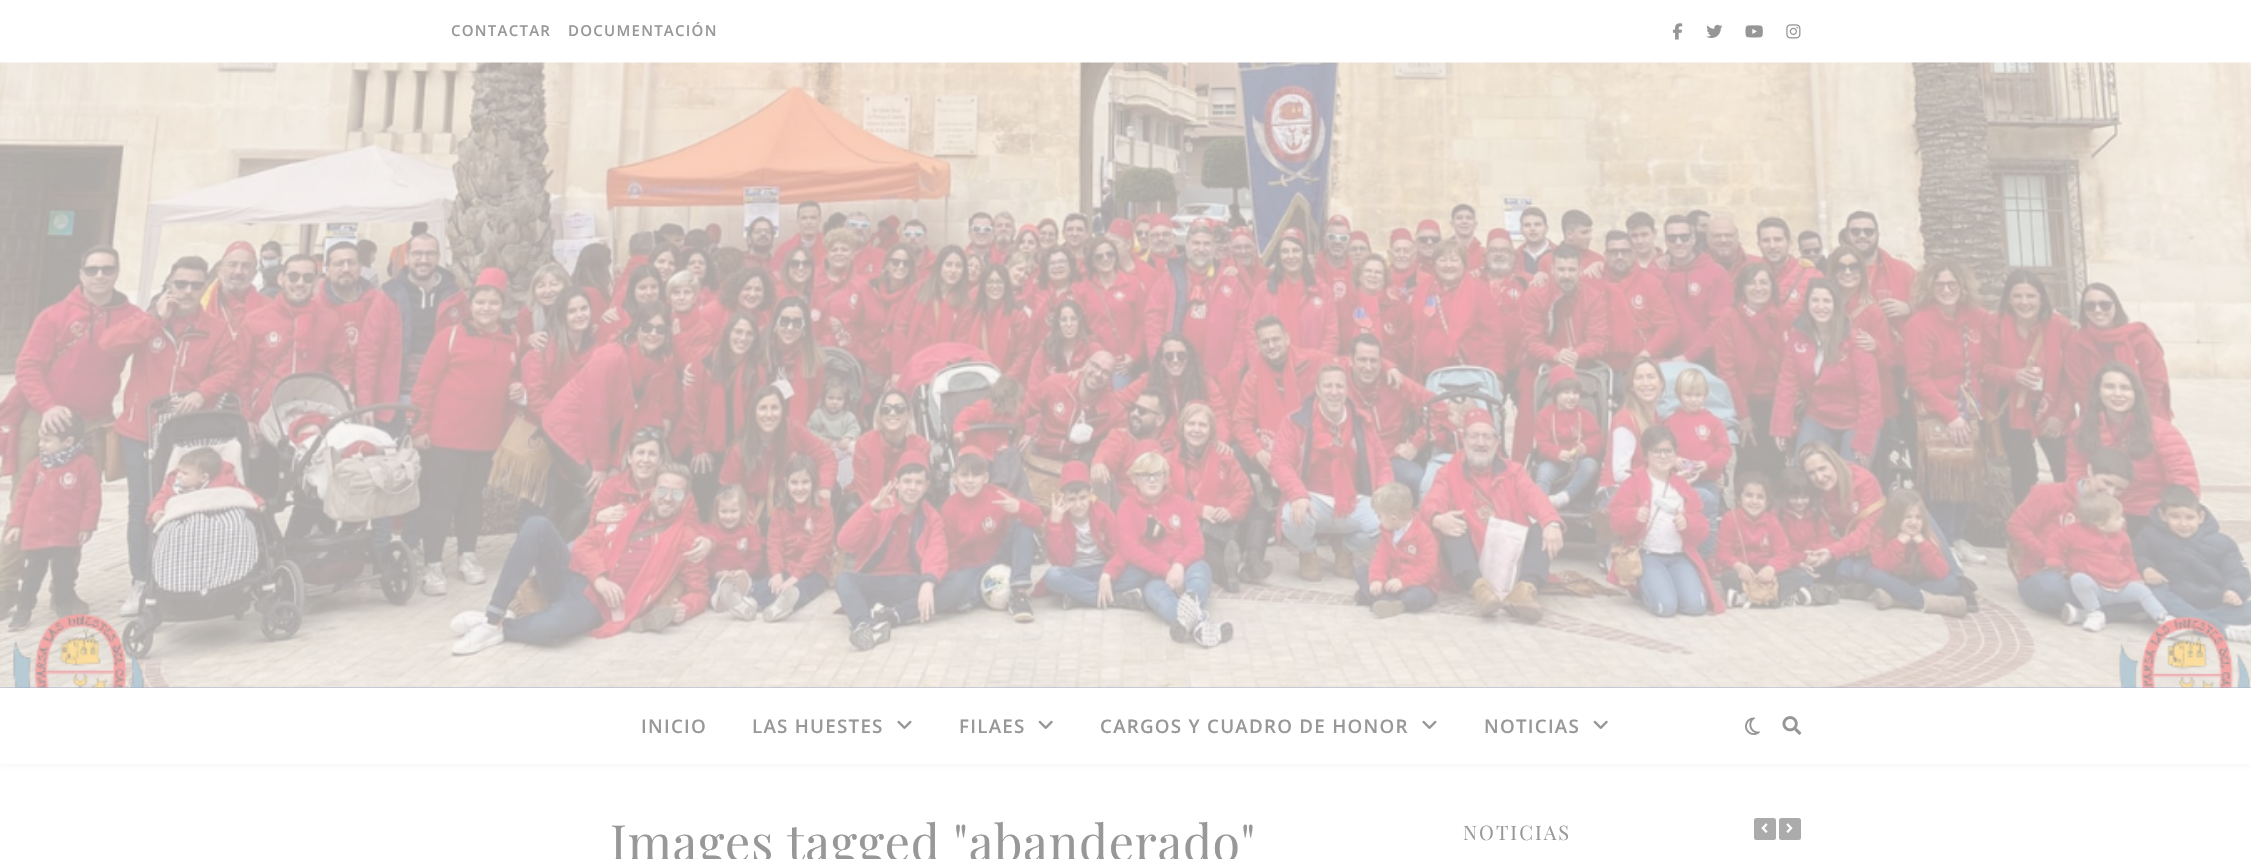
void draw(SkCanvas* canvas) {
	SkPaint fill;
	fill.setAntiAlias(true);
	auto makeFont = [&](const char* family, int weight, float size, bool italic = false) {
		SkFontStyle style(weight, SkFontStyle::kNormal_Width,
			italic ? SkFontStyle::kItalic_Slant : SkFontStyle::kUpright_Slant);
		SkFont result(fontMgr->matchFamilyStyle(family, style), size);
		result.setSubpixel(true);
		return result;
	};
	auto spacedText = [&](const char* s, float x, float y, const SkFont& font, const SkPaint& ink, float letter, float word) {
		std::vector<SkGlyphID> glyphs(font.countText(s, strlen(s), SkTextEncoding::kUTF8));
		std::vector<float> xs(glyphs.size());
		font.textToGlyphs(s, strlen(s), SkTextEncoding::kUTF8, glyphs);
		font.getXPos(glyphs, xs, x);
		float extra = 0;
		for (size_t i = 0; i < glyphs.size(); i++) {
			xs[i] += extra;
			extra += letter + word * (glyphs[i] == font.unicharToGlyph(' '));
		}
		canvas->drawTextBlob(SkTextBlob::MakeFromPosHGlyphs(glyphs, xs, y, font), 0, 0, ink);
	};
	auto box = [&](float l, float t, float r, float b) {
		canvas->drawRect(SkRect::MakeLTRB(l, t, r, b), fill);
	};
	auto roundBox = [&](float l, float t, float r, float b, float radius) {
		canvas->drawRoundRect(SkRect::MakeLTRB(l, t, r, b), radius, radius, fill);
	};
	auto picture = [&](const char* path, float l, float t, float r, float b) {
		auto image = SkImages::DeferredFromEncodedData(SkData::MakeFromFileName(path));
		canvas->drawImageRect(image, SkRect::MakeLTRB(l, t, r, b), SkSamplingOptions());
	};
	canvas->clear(0xFFFFFFFF);
	picture("image0.png", 1672, 23, 1683, 40);
	picture("image1.png", 1706, 24, 1723, 38);
	picture("image2.png", 1745, 25, 1763, 38);
	picture("image3.png", 1786, 24, 1801, 39);
	fill.setColor(0xFFA2AFCC);
	box(0, 687, 2251, 688);
	picture("image4.png", 0, 62, 2251, 688);
	fill.setColor(0x1A969696);
	fill.setMaskFilter(SkMaskFilter::MakeBlur(kNormal_SkBlurStyle, 3));
	canvas->drawRect(SkRect::MakeLTRB(0, 689, 2251, 765), fill);
	fill.setMaskFilter(nullptr);
	fill.setColor(0xFFFFFFFF);
	box(0, 688, 2251, 764);
	picture("image5.png", 897, 720, 912, 729);
	picture("image6.png", 1038, 720, 1053, 729);
	picture("image5.png", 1422, 720, 1437, 729);
	picture("image6.png", 1593, 720, 1608, 729);
	picture("image7.png", 1745, 717, 1760, 735);
	picture("image8.png", 1782, 716, 1802, 735);
	fill.setColor(0xFFABABAB);
	roundBox(1754, 818, 1776, 840, 2.5f);
	picture("image9.png", 1761, 823, 1768, 833);
	roundBox(1779, 818, 1801, 840, 2.5f);
	picture("image10.png", 1786, 823, 1793, 833);
	auto font1 = makeFont("Open Sans", 600, 15);
	fill.setColor(0xFF989898);
	spacedText("CONTACTAR", 451, 36, font1, fill, 1.25f, 0);
	spacedText("DOCUMENTACIÓN", 568, 36, font1, fill, 1.25f, 0);
	auto font2 = makeFont("Open Sans", 600, 18.75f);
	spacedText("INICIO", 641, 733, font2, fill, 1.25f, 0);
	spacedText("LAS HUESTES", 752, 733, font2, fill, 1.25f, 0);
	spacedText("FILAES", 959, 733, font2, fill, 1.25f, 0);
	spacedText("CARGOS Y CUADRO DE HONOR", 1100, 733, font2, fill, 1.25f, 0);
	spacedText("NOTICIAS", 1484, 733, font2, fill, 1.25f, 0);
	auto font3 = makeFont("Playfair Display", 400, 50);
	spacedText("Images tagged \"abanderado\"", 610, 861, font3, fill, 0.6f, 0);
	auto font4 = makeFont("Playfair Display", 400, 20);
	spacedText("NOTICIAS", 1463, 840, font4, fill, 2, 0);
}
